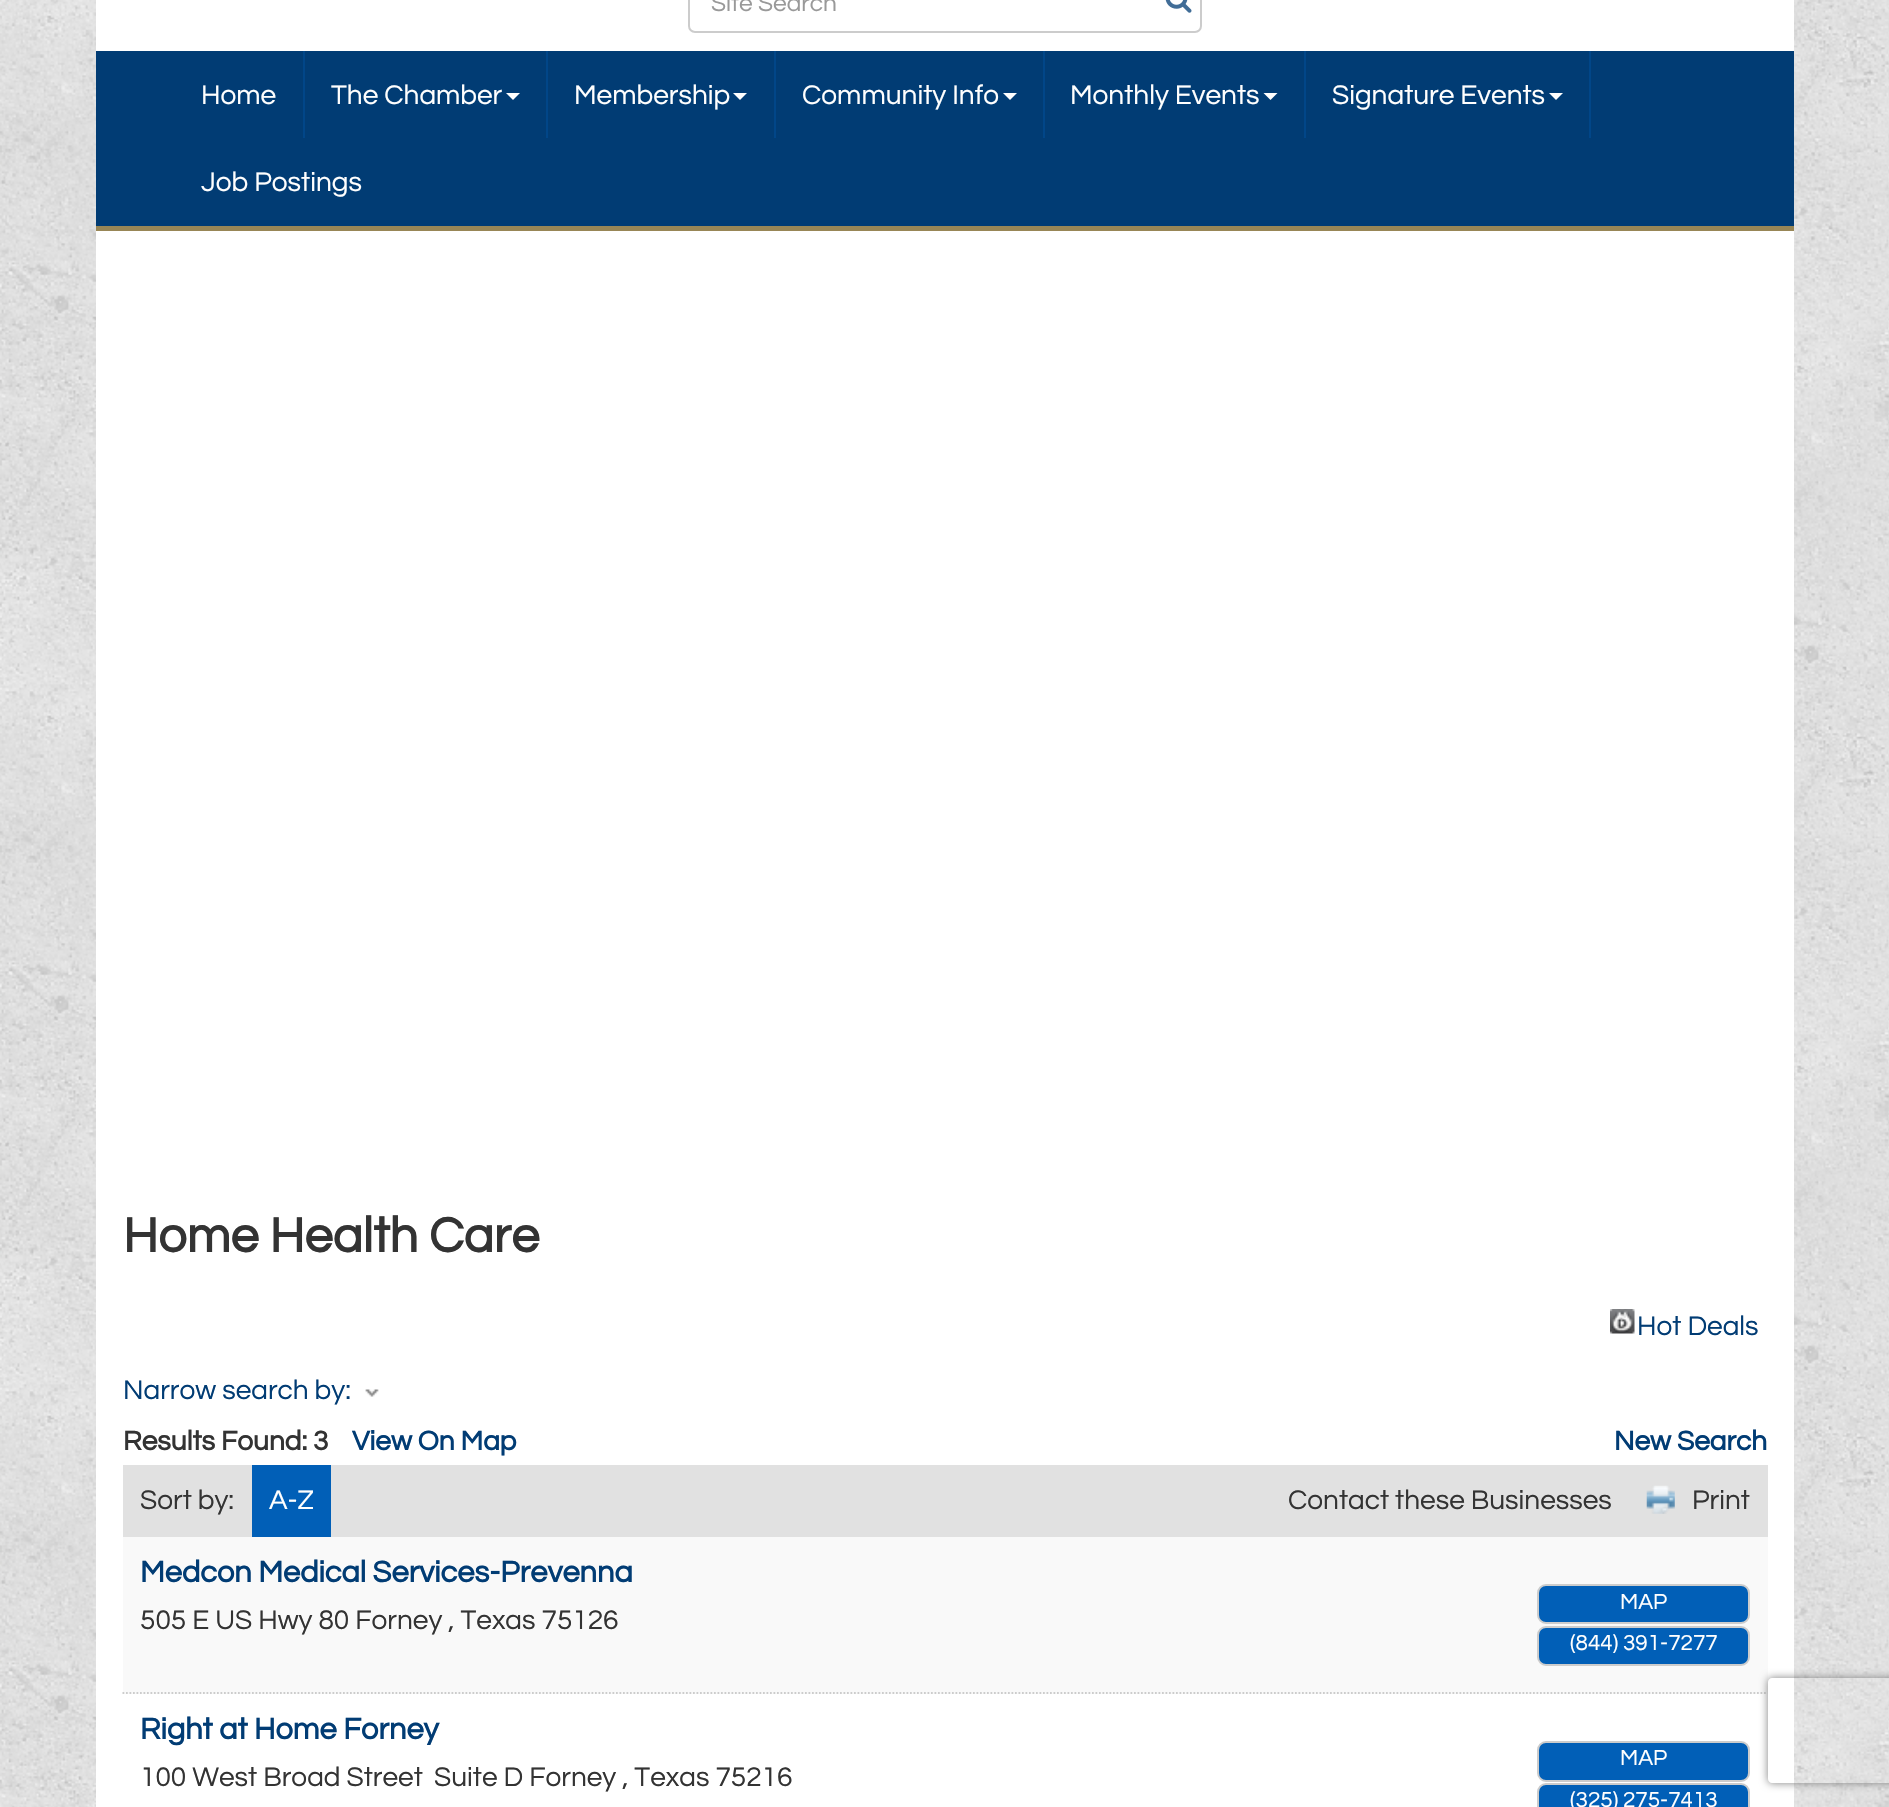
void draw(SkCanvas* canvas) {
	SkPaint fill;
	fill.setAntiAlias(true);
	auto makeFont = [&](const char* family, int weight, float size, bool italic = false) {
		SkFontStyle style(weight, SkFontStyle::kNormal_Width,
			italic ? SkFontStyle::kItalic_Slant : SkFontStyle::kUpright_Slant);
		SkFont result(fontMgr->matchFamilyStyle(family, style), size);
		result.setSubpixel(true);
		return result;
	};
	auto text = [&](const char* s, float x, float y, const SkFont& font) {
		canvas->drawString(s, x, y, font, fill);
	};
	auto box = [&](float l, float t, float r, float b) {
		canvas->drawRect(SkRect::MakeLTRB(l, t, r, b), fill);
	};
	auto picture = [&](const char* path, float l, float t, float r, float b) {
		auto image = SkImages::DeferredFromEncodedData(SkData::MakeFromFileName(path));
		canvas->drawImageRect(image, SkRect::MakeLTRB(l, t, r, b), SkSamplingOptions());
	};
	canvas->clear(0xFFFFFFFF);
	picture("image0.png", 0, 0, 1889, 1807);
	fill.setColor(0xFFFFFFFF);
	box(96, 0, 1794, 51);
	fill.setStyle(SkPaint::kStroke_Style);
	fill.setStrokeWidth(2);
	fill.setColor(0xFFCCCCCC);
	canvas->drawRoundRect(SkRect::MakeLTRB(689, -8, 1201, 32), 6, 6, fill);
	picture("image1.png", 1165, 0, 1192, 13);
	fill.setStyle(SkPaint::kFill_Style);
	fill.setColor(0xFF013C74);
	box(96, 51, 1794, 226);
	fill.setColor(0xFF988656);
	box(96, 226, 1794, 231);
	fill.setColor(0xFF014688);
	box(303, 51, 305, 138);
	box(546, 51, 548, 138);
	fill.setColor(0xFFFFFFFF);
	canvas->drawPath(SkPathBuilder().moveTo(506, 93).lineTo(520, 93).lineTo(513, 100).close().detach(), fill);
	fill.setColor(0xFF014688);
	box(774, 51, 776, 138);
	fill.setColor(0xFFFFFFFF);
	canvas->drawPath(SkPathBuilder().moveTo(733, 93).lineTo(747, 93).lineTo(740, 100).close().detach(), fill);
	fill.setColor(0xFF014688);
	box(1043, 51, 1045, 138);
	fill.setColor(0xFFFFFFFF);
	canvas->drawPath(SkPathBuilder().moveTo(1003, 93).lineTo(1017, 93).lineTo(1010, 100).close().detach(), fill);
	fill.setColor(0xFF014688);
	box(1304, 51, 1306, 138);
	fill.setColor(0xFFFFFFFF);
	canvas->drawPath(SkPathBuilder().moveTo(1263.5f, 93).lineTo(1277.5f, 93).lineTo(1270.5f, 100).close().detach(), fill);
	fill.setColor(0xFF014688);
	box(1589, 51, 1591, 138);
	fill.setColor(0xFFFFFFFF);
	canvas->drawPath(SkPathBuilder().moveTo(1549, 93).lineTo(1563, 93).lineTo(1556, 100).close().detach(), fill);
	box(96, 231, 1794, 1807);
	picture("image2.png", 1610, 1309, 1635, 1334);
	picture("image3.png", 365, 1389, 379, 1397);
	fill.setColor(0xFFE1E1E1);
	box(123, 1465, 1768, 1537);
	fill.setColor(0xFF015FB7);
	box(252, 1465, 331, 1537);
	picture("image4.png", 1646, 1485, 1675, 1514);
	fill.setColor(0xFFF9F9F9);
	box(123, 1537, 1768, 1694);
	fill.setStyle(SkPaint::kStroke_Style);
	fill.setStrokeWidth(1.8f);
	fill.setColor(0xFFCCCCCC);
	fill.setPathEffect(SkDashPathEffect::Make({{1.75f, 1.75f}}, 0));
	canvas->drawPath(SkPathBuilder().moveTo(122.5f, 1693).lineTo(1767.5f, 1693).detach(), fill);
	fill.setPathEffect(nullptr);
	fill.setStyle(SkPaint::kFill_Style);
	fill.setColor(0xFF015FB7);
	canvas->drawRoundRect(SkRect::MakeLTRB(1538, 1585, 1749, 1623), 8, 8, fill);
	fill.setStyle(SkPaint::kStroke_Style);
	fill.setStrokeWidth(2);
	fill.setColor(0xFFCCCCCC);
	canvas->drawRoundRect(SkRect::MakeLTRB(1538, 1585, 1749, 1623), 8, 8, fill);
	fill.setStyle(SkPaint::kFill_Style);
	fill.setColor(0xFF015FB7);
	canvas->drawRoundRect(SkRect::MakeLTRB(1538, 1627, 1749, 1665), 8, 8, fill);
	fill.setStyle(SkPaint::kStroke_Style);
	fill.setColor(0xFFCCCCCC);
	canvas->drawRoundRect(SkRect::MakeLTRB(1538, 1627, 1749, 1665), 8, 8, fill);
	fill.setStyle(SkPaint::kFill_Style);
	fill.setColor(0xFF015FB7);
	canvas->drawRoundRect(SkRect::MakeLTRB(1538, 1742, 1749, 1781), 8, 8, fill);
	fill.setStyle(SkPaint::kStroke_Style);
	fill.setColor(0xFFCCCCCC);
	canvas->drawRoundRect(SkRect::MakeLTRB(1538, 1742, 1749, 1781), 8, 8, fill);
	fill.setStyle(SkPaint::kFill_Style);
	fill.setColor(0xFF015FB7);
	canvas->drawRoundRect(SkRect::MakeLTRB(1538, 1784, 1749, 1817), 8, 8, fill);
	fill.setStyle(SkPaint::kStroke_Style);
	fill.setColor(0xFFCCCCCC);
	canvas->drawRoundRect(SkRect::MakeLTRB(1538, 1784, 1749, 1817), 8, 8, fill);
	canvas->save();
	canvas->clipPath(SkPathBuilder(SkPathFillType::kEvenOdd).moveTo(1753, 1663).lineTo(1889, 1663).lineTo(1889, 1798).lineTo(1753, 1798).close().moveTo(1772, 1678).lineTo(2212, 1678).cubicTo(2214, 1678, 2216, 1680, 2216, 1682).lineTo(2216, 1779).cubicTo(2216, 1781, 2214, 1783, 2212, 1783).lineTo(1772, 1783).cubicTo(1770, 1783, 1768, 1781, 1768, 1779).lineTo(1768, 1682).cubicTo(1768, 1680, 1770, 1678, 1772, 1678).close().detach(), true);
	fill.setStyle(SkPaint::kFill_Style);
	fill.setColor(0xFF808080);
	fill.setMaskFilter(SkMaskFilter::MakeBlur(kNormal_SkBlurStyle, 4.5f));
	canvas->drawRoundRect(SkRect::MakeLTRB(1768, 1678, 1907, 1783), 4, 4, fill);
	fill.setMaskFilter(nullptr);
	canvas->restore();
	auto font1 = makeFont("Questrial", 400, 24.5f);
	fill.setColor(0xFF999999);
	text("Site Search", 711, 11, font1);
	auto font2 = makeFont("Questrial", 400, 28);
	fill.setColor(0xFFFFFFFF);
	text("Home", 201, 104, font2);
	text("The Chamber", 331, 104, font2);
	text("Membership", 574, 104, font2);
	text("Community Info", 802, 104, font2);
	text("Monthly Events", 1070, 104, font2);
	text("Signature Events", 1332, 104, font2);
	text("Job Postings", 201, 191, font2);
	auto font3 = makeFont("Questrial", 700, 50.5f);
	fill.setColor(0xFF333333);
	text("Home Health Care", 123, 1252, font3);
	fill.setColor(0xFF013C74);
	text("Hot Deals", 1637, 1335, font2);
	text("Narrow search by:", 123, 1399, font2);
	auto font4 = makeFont("Questrial", 700, 28);
	fill.setColor(0xFF333333);
	text("Results Found: 3", 123, 1450, font4);
	fill.setColor(0xFF013C74);
	text("View On Map", 352, 1450, font4);
	text("New Search", 1614, 1450, font4);
	fill.setColor(0xFF333333);
	text("Sort by:", 140, 1509, font2);
	fill.setColor(0xFFFFFFFF);
	text("A-Z", 269, 1509, font2);
	fill.setColor(0xFF333333);
	text("Contact these Businesses", 1288, 1509, font2);
	text("Print", 1692, 1509, font2);
	auto font5 = makeFont("Questrial", 700, 30.75f);
	fill.setColor(0xFF013C74);
	text("Medcon Medical Services-Prevenna", 140, 1582, font5);
	fill.setColor(0xFF333333);
	text("505 E US Hwy 80 Forney , Texas 75126", 140, 1629, font2);
	auto font6 = makeFont("Questrial", 400, 22.5f);
	fill.setColor(0xFFFFFFFF);
	text("MAP", 1620, 1609, font6);
	text("(844) 391-7277", 1570, 1650, font6);
	fill.setColor(0xFF013C74);
	text("Right at Home Forney", 140, 1739, font5);
	fill.setColor(0xFF333333);
	text("100 West Broad Street", 140, 1786, font2);
	text("Suite D Forney , Texas 75216", 434, 1786, font2);
	fill.setColor(0xFFFFFFFF);
	text("MAP", 1620, 1765, font6);
	text("(325) 275-7413", 1570, 1807, font6);
}
